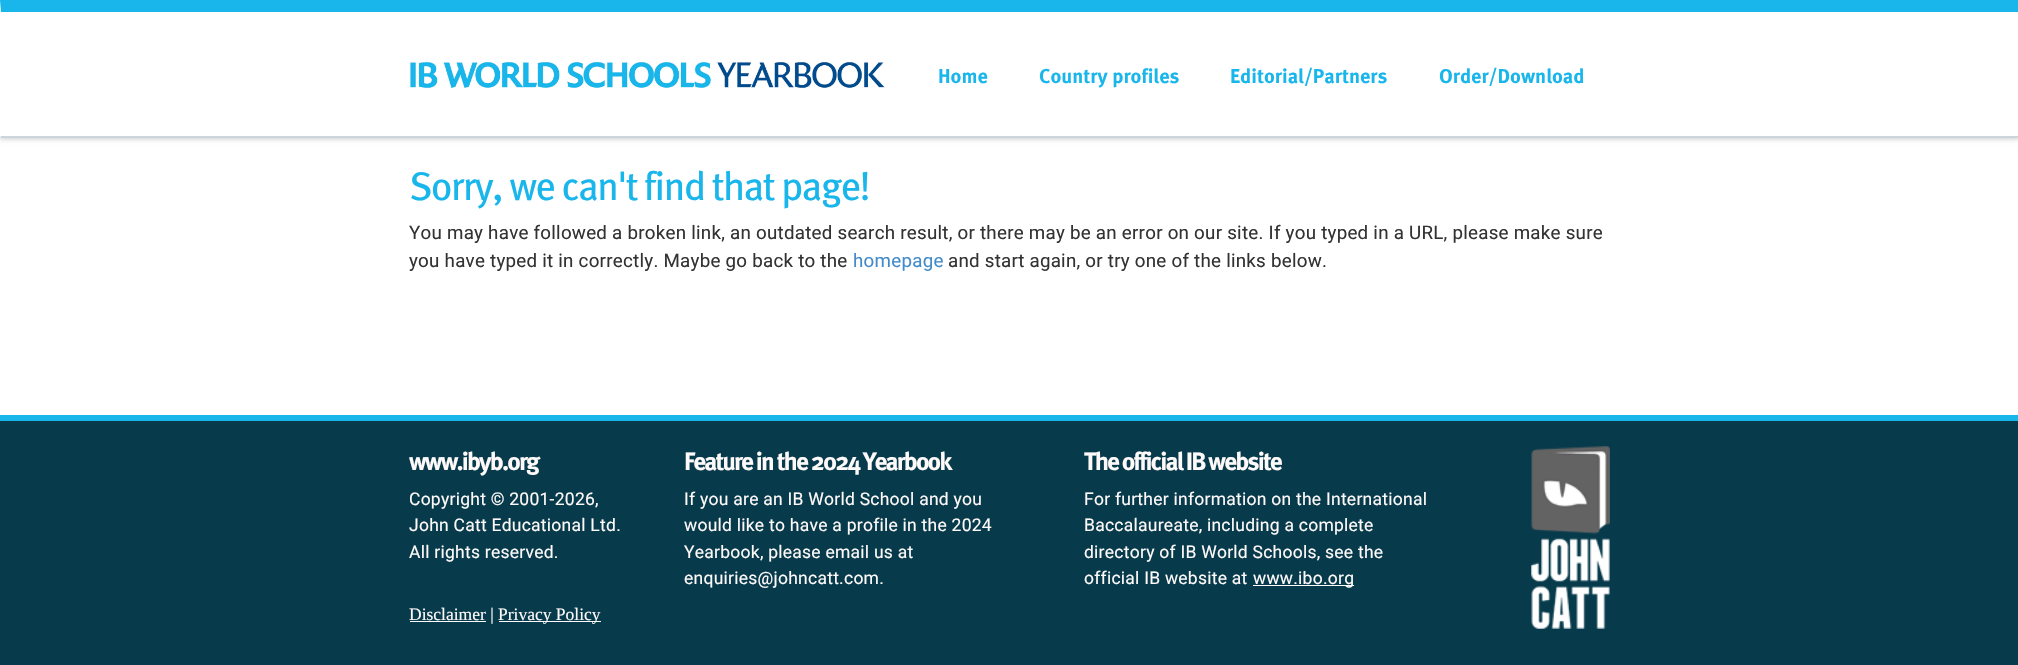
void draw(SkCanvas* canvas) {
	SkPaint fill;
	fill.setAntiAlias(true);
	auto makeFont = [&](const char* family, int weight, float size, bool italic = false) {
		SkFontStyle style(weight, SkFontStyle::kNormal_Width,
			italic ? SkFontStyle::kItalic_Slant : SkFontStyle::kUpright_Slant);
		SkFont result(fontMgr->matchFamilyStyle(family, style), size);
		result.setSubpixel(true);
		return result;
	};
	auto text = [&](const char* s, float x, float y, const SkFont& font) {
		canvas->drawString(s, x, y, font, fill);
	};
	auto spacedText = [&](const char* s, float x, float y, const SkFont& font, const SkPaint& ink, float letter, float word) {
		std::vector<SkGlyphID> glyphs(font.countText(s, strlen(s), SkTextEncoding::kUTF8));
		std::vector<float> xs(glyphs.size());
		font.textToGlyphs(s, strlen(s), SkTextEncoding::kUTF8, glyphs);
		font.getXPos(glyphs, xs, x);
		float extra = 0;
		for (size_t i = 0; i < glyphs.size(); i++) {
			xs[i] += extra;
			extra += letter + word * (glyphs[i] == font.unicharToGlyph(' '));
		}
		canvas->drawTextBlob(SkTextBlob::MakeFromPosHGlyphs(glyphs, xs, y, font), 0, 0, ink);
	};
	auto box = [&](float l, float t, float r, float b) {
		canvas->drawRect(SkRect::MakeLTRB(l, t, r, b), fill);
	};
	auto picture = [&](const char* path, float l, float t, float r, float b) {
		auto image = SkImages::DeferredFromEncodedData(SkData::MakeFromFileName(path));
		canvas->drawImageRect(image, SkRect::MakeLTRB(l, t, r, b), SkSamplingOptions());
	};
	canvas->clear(0xFFFFFFFF);
	fill.setColor(0x33000000);
	fill.setMaskFilter(SkMaskFilter::MakeBlur(kNormal_SkBlurStyle, 2.5f));
	canvas->drawRect(SkRect::MakeLTRB(0, 1, 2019, 139), fill);
	fill.setMaskFilter(nullptr);
	fill.setColor(0xFFFFFFFF);
	box(0, 0, 2018, 138);
	fill.setColor(0xFF19B6EB);
	canvas->drawPath(SkPathBuilder().moveTo(0, 0).lineTo(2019, 0).lineTo(2018, 12).lineTo(1, 12).close().detach(), fill);
	fill.setColor(0xFFCBD5DA);
	canvas->drawPath(SkPathBuilder().moveTo(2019, 138).lineTo(0, 138).lineTo(1, 136).lineTo(2018, 136).close().detach(), fill);
	picture("image0.png", 410, 62, 885, 89);
	fill.setColor(0xFF073A4B);
	box(0, 421, 2018, 665);
	fill.setColor(0xFF19B6EB);
	box(0, 415, 2018, 421);
	picture("image1.png", 1531, 446, 1610, 629);
	fill.setColor(0xFFFFFAFA);
	box(410, 621, 486, 622);
	box(499, 621, 601, 622);
	box(1253, 585, 1354, 586);
	auto font1 = makeFont("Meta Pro", 700, 20);
	fill.setColor(0xFF19B6EB);
	text("Home", 938, 83, font1);
	text("Country profiles", 1039, 83, font1);
	text("Editorial/Partners", 1230, 83, font1);
	text("Order/Download", 1439, 83, font1);
	auto font2 = makeFont("Meta Pro", 400, 40);
	spacedText("Sorry, we can't find that page!", 409, 200, font2, fill, -1.9f, 0);
	auto font3 = makeFont("Roboto", 400, 18.75f);
	fill.setColor(0xFF333333);
	spacedText("You may have followed a broken link, an outdated search result, or there may be an error on our site. If you typed in a URL, please make sure", 409, 239, font3, fill, 0.25f, 0);
	spacedText("you have typed it in correctly. Maybe go back to the", 409, 267, font3, fill, 0.25f, 0);
	fill.setColor(0xFF428BCA);
	spacedText("homepage", 853, 267, font3, fill, 0.25f, 0);
	fill.setColor(0xFF333333);
	spacedText("and start again, or try one of the links below.", 948, 267, font3, fill, 0.25f, 0);
	auto font4 = makeFont("Meta Pro", 700, 25);
	fill.setColor(0xFFFFFAFA);
	spacedText("www.ibyb.org", 409, 470, font4, fill, -1.9f, 0);
	auto font5 = makeFont("Roboto", 400, 17.5f);
	spacedText("Copyright © 2001-2026,", 409, 505, font5, fill, 0.25f, 0);
	spacedText("John Catt Educational Ltd.", 409, 531, font5, fill, 0.25f, 0);
	spacedText("All rights reserved.", 409, 558, font5, fill, 0.25f, 0);
	auto font6 = makeFont("Liberation Serif", 400, 17.5f);
	text("Disclaimer |", 409, 620, font6);
	text("Privacy Policy", 498, 620, font6);
	spacedText("Feature in the 2024 Yearbook", 684, 470, font4, fill, -1.9f, 0);
	spacedText("If you are an IB World School and you", 684, 505, font5, fill, 0.25f, 0);
	spacedText("would like to have a profile in the 2024", 684, 531, font5, fill, 0.25f, 0);
	spacedText("Yearbook, please email us at", 684, 558, font5, fill, 0.25f, 0);
	spacedText("enquiries@johncatt.com.", 684, 584, font5, fill, 0.25f, 0);
	spacedText("The official IB website", 1084, 470, font4, fill, -1.9f, 0);
	spacedText("For further information on the International", 1084, 505, font5, fill, 0.25f, 0);
	spacedText("Baccalaureate, including a complete", 1084, 531, font5, fill, 0.25f, 0);
	spacedText("directory of IB World Schools, see the", 1084, 558, font5, fill, 0.25f, 0);
	spacedText("official IB website at", 1084, 584, font5, fill, 0.25f, 0);
	spacedText("www.ibo.org", 1253, 584, font5, fill, 0.25f, 0);
}
